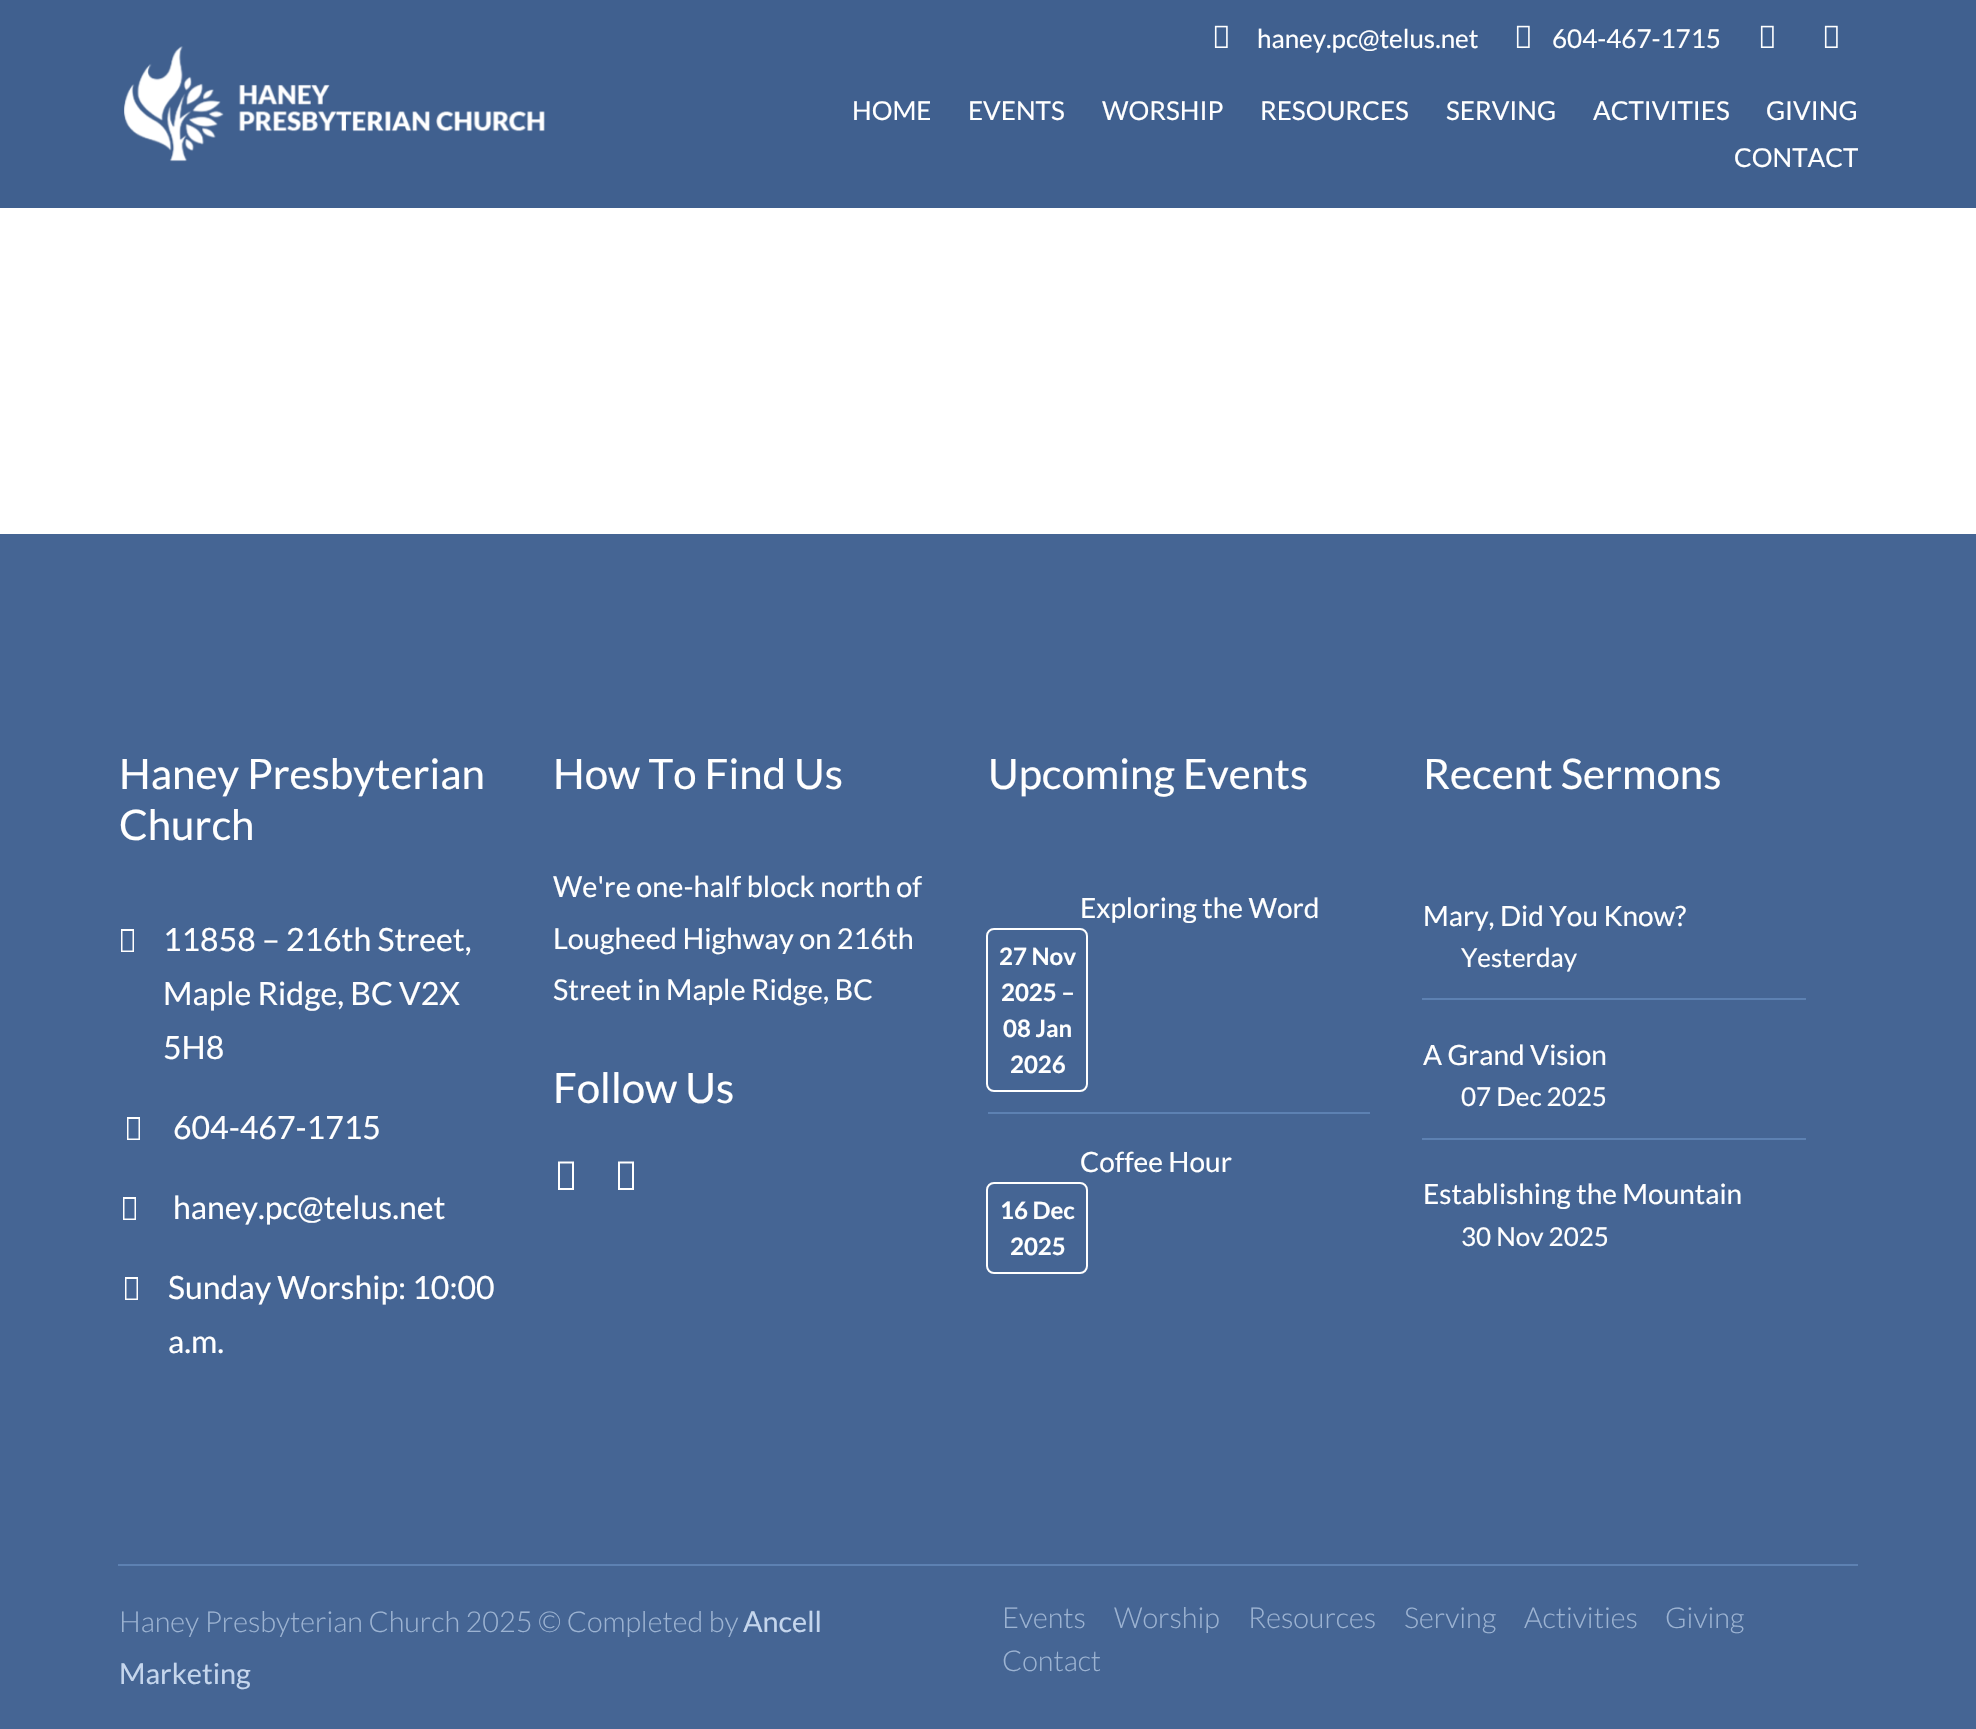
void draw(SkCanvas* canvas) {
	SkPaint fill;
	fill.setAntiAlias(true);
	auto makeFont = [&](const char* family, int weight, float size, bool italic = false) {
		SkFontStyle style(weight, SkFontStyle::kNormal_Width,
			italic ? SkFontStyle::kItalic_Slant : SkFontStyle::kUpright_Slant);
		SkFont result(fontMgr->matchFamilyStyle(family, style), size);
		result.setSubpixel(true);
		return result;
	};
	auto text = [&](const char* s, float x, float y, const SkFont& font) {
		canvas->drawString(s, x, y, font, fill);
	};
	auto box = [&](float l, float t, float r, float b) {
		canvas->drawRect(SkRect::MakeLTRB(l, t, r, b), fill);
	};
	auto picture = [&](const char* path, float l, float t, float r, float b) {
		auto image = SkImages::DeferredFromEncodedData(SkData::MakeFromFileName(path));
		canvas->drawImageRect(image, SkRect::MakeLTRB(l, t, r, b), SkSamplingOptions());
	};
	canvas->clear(0xFFFFFFFF);
	fill.setColor(0xFF40608F);
	box(0, 0, 1976, 208);
	picture("image0.png", 124, 46, 545, 162);
	picture("image1.png", 1214, 25, 1228, 48);
	picture("image1.png", 1516, 25, 1530, 48);
	picture("image1.png", 1760, 25, 1774, 48);
	picture("image1.png", 1824, 25, 1838, 48);
	fill.setColor(0xFF456594);
	box(0, 534, 1976, 1729);
	fill.setColor(0xFFFFFFFF);
	canvas->drawPath(SkPathBuilder().moveTo(121, 952).lineTo(121, 929).lineTo(134, 929).lineTo(134, 952).close().moveTo(122.5f, 950.5f).lineTo(132.5f, 950.5f).lineTo(132.5f, 931).lineTo(122.5f, 931).close().detach(), fill);
	canvas->drawPath(SkPathBuilder().moveTo(127, 1140).lineTo(127, 1117).lineTo(140, 1117).lineTo(140, 1140).close().moveTo(128.5f, 1138.5f).lineTo(138.5f, 1138.5f).lineTo(138.5f, 1119).lineTo(128.5f, 1119).close().detach(), fill);
	canvas->drawPath(SkPathBuilder().moveTo(123, 1220).lineTo(123, 1197).lineTo(136, 1197).lineTo(136, 1220).close().moveTo(124.5f, 1218.5f).lineTo(134.5f, 1218.5f).lineTo(134.5f, 1199).lineTo(124.5f, 1199).close().detach(), fill);
	canvas->drawPath(SkPathBuilder().moveTo(125, 1300).lineTo(125, 1277).lineTo(138, 1277).lineTo(138, 1300).close().moveTo(126.5f, 1298.5f).lineTo(136.5f, 1298.5f).lineTo(136.5f, 1279).lineTo(126.5f, 1279).close().detach(), fill);
	canvas->drawPath(SkPathBuilder().moveTo(558, 1190).lineTo(558, 1161.5f).lineTo(574, 1161.5f).lineTo(574, 1190).close().moveTo(560, 1188).lineTo(572, 1188).lineTo(572, 1163.5f).lineTo(560, 1163.5f).close().detach(), fill);
	canvas->drawPath(SkPathBuilder().moveTo(618, 1190).lineTo(618, 1161.5f).lineTo(634, 1161.5f).lineTo(634, 1190).close().moveTo(620, 1188).lineTo(632, 1188).lineTo(632, 1163.5f).lineTo(620, 1163.5f).close().detach(), fill);
	fill.setColor(0xFF5D81B2);
	box(988, 1112, 1370, 1114);
	fill.setStyle(SkPaint::kStroke_Style);
	fill.setStrokeWidth(2);
	fill.setColor(0xFFFFFFFF);
	canvas->drawRoundRect(SkRect::MakeLTRB(987, 929, 1087, 1091), 7, 7, fill);
	canvas->drawRoundRect(SkRect::MakeLTRB(987, 1183, 1087, 1273), 7, 7, fill);
	fill.setStyle(SkPaint::kFill_Style);
	fill.setColor(0xFF5D81B2);
	box(1422, 998, 1806, 1000);
	box(1422, 1138, 1806, 1140);
	box(118, 1564, 1858, 1566);
	auto font1 = makeFont("Lato", 400, 26);
	fill.setColor(0xFFFFFFFF);
	text("haney.pc@telus.net", 1257, 48, font1);
	text("604-467-1715", 1552, 48, font1);
	text("HOME", 852, 120, font1);
	text("EVENTS", 968, 120, font1);
	text("WORSHIP", 1102, 120, font1);
	text("RESOURCES", 1260, 120, font1);
	text("SERVING", 1446, 120, font1);
	text("ACTIVITIES", 1593, 120, font1);
	text("GIVING", 1766, 120, font1);
	text("CONTACT", 1734, 167, font1);
	auto font2 = makeFont("Lato", 400, 42);
	text("Haney Presbyterian", 119, 789, font2);
	text("Church", 119, 840, font2);
	auto font3 = makeFont("Lato", 400, 32);
	text("11858 – 216th Street,", 163, 951, font3);
	text("Maple Ridge, BC V2X", 163, 1005, font3);
	text("5H8", 163, 1059, font3);
	text("604-467-1715", 173, 1139, font3);
	text("haney.pc@telus.net", 173, 1219, font3);
	text("Sunday Worship: 10:00", 168, 1299, font3);
	text("a.m.", 168, 1353, font3);
	text("How To Find Us", 553, 789, font2);
	auto font4 = makeFont("Lato", 400, 28.8f);
	text("We're one-half block north of", 553, 897, font4);
	text("Lougheed Highway on 216th", 553, 949, font4);
	text("Street in Maple Ridge, BC", 553, 1000, font4);
	text("Follow Us", 553, 1103, font2);
	text("Upcoming Events", 988, 789, font2);
	auto font5 = makeFont("Lato", 400, 28);
	text("Exploring the Word", 1080, 918, font5);
	auto font6 = makeFont("Lato", 700, 24);
	text("27 Nov", 999, 965, font6);
	text("2025 –", 1001, 1001, font6);
	text("08 Jan", 1003, 1037, font6);
	text("2026", 1010, 1073, font6);
	text("Coffee Hour", 1080, 1172, font5);
	text("16 Dec", 1000, 1219, font6);
	text("2025", 1010, 1255, font6);
	text("Recent Sermons", 1423, 789, font2);
	text("Mary, Did You Know?", 1423, 926, font5);
	text("Yesterday", 1461, 967, font1);
	text("A Grand Vision", 1423, 1065, font5);
	text("07 Dec 2025", 1461, 1106, font1);
	text("Establishing the Mountain", 1423, 1204, font5);
	text("30 Nov 2025", 1461, 1246, font1);
	auto font7 = makeFont("Lato", 300, 28.8f);
	fill.setColor(0xFF9CB3D2);
	text("Haney Presbyterian Church 2025 © Completed by", 119, 1632, font7);
	fill.setColor(0xFFC5D6ED);
	text("Ancell", 743, 1632, font4);
	text("Marketing", 119, 1684, font4);
	fill.setColor(0xFF9CB3D2);
	text("Events", 1002, 1628, font7);
	text("Worship", 1114, 1628, font7);
	text("Resources", 1248, 1628, font7);
	text("Serving", 1404, 1628, font7);
	text("Activities", 1524, 1628, font7);
	text("Giving", 1665, 1628, font7);
	text("Contact", 1002, 1671, font7);
}
